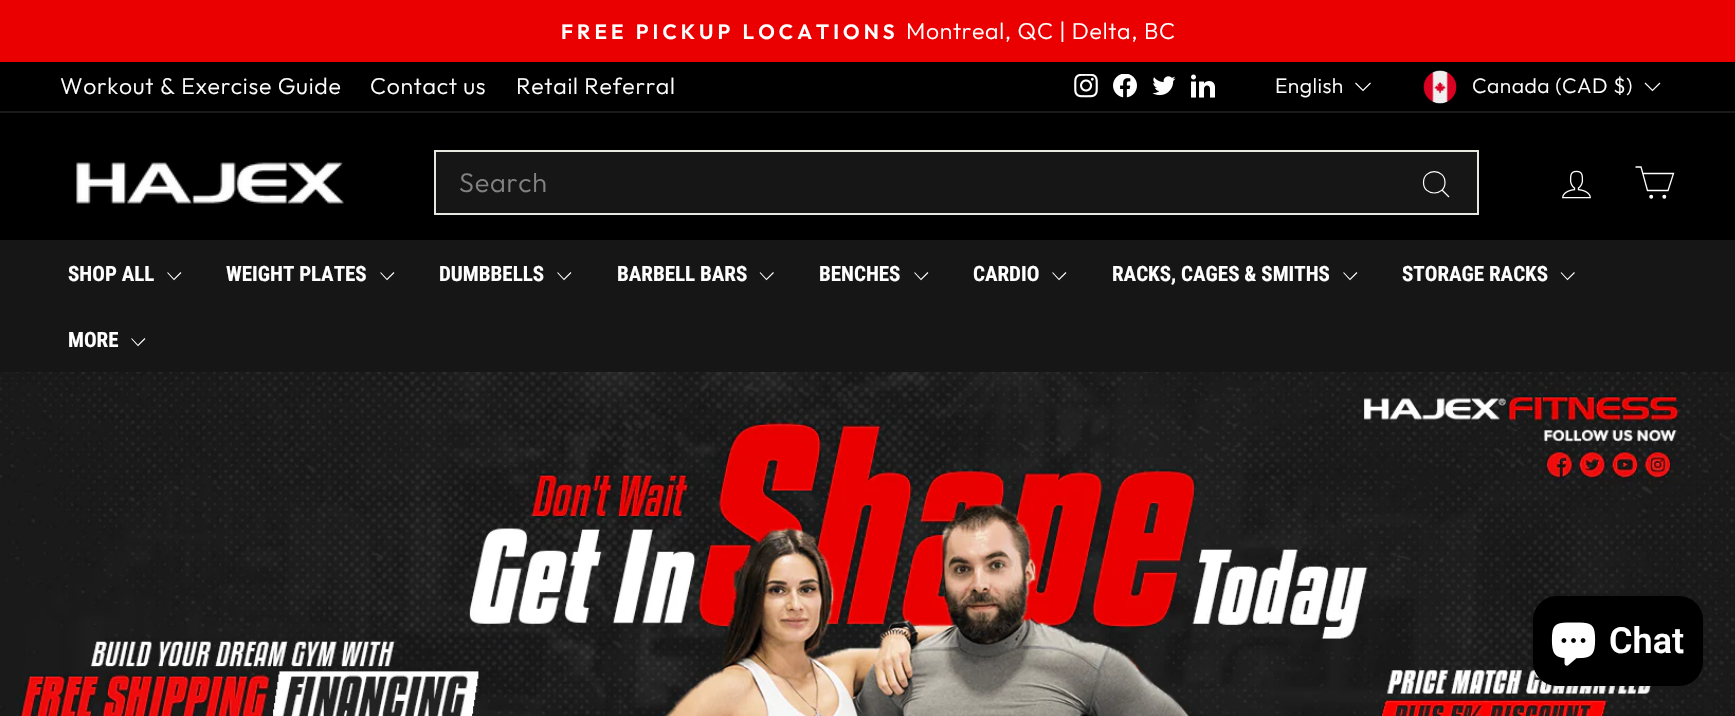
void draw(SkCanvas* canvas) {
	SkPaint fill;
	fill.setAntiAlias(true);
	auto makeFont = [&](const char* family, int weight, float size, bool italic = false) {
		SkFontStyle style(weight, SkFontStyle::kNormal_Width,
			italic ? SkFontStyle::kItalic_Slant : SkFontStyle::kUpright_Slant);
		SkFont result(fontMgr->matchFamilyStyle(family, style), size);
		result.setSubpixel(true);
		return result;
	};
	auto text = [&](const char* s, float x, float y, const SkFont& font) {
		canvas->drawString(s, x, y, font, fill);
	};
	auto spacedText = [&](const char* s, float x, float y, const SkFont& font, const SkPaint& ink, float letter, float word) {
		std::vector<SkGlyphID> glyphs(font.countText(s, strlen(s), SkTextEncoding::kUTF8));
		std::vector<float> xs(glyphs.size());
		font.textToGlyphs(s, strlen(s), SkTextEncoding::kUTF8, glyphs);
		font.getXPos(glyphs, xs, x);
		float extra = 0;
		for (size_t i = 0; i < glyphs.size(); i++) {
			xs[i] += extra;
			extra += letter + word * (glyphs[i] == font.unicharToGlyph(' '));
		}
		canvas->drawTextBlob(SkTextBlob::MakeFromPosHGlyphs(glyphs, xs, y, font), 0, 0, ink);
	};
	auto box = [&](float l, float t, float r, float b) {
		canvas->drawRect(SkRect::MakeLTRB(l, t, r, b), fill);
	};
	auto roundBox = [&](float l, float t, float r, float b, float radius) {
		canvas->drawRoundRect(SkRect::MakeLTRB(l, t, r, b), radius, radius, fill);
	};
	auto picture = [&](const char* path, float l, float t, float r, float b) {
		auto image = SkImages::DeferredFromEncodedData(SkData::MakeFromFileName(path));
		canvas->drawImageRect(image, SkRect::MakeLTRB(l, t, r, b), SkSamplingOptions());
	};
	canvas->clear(0xFF000000);
	fill.setColor(0xFFEA0000);
	box(0, 0, 1735, 62);
	picture("image0.png", 1074, 74, 1098, 98);
	picture("image1.png", 1113, 74, 1137, 98);
	picture("image2.png", 1152, 76, 1176, 96);
	picture("image3.png", 1191, 74, 1215, 98);
	fill.setStyle(SkPaint::kStroke_Style);
	fill.setStrokeWidth(1.2f);
	fill.setColor(0xFFFFFFFF);
	canvas->drawPath(SkPathBuilder().moveTo(1355.5f, 83).lineTo(1363, 90.5f).lineTo(1370.5f, 83).detach(), fill);
	picture("image4.png", 1423, 70, 1457, 104);
	canvas->drawPath(SkPathBuilder().moveTo(1645, 83).lineTo(1652.5f, 90.5f).lineTo(1660, 83).detach(), fill);
	fill.setStyle(SkPaint::kFill_Style);
	fill.setColor(0xFF1A1A1A);
	box(0, 111, 1735, 113);
	picture("image5.png", 76, 162, 344, 204);
	fill.setColor(0xFF161616);
	canvas->drawRect(SkRect::MakeLTRB(435, 151, 1478, 214), fill);
	fill.setStyle(SkPaint::kStroke_Style);
	fill.setStrokeWidth(2);
	fill.setColor(0xFFE8E8E1);
	canvas->drawRect(SkRect::MakeLTRB(435, 151, 1478, 214), fill);
	fill.setStrokeWidth(1.2f);
	fill.setColor(0xFFFFFFFF);
	canvas->drawPath(SkPathBuilder().moveTo(1445, 182.5f).cubicTo(1445, 196.5f, 1423.5f, 196.5f, 1423.5f, 182.5f).cubicTo(1423.5f, 168, 1445, 168, 1445, 182.5f).close().moveTo(1449, 197).lineTo(1442, 190).detach(), fill);
	picture("image6.png", 1562, 170, 1591, 199);
	fill.setStrokeWidth(1.3f);
	canvas->drawPath(SkPathBuilder().moveTo(1642.5f, 173.5f).lineTo(1673.5f, 173.5f).lineTo(1668, 190.5f).lineTo(1647.5f, 190.5f).lineTo(1641, 167).lineTo(1635.5f, 167).detach(), fill);
	fill.setStyle(SkPaint::kFill_Style);
	canvas->drawCircle(1651.2f, 196.8f, 1.3f, fill);
	fill.setStyle(SkPaint::kStroke_Style);
	canvas->drawCircle(1651.2f, 196.8f, 1.3f, fill);
	fill.setStyle(SkPaint::kFill_Style);
	canvas->drawCircle(1664.3f, 196.8f, 1.3f, fill);
	fill.setStyle(SkPaint::kStroke_Style);
	canvas->drawCircle(1664.3f, 196.8f, 1.3f, fill);
	fill.setStyle(SkPaint::kFill_Style);
	fill.setColor(0xFF161616);
	box(0, 240, 1735, 372);
	fill.setStyle(SkPaint::kStroke_Style);
	fill.setStrokeWidth(1.1f);
	fill.setColor(0xFFFFFFFF);
	canvas->drawPath(SkPathBuilder().moveTo(167.5f, 272.5f).lineTo(174, 279.5f).lineTo(181, 272.5f).detach(), fill);
	canvas->drawPath(SkPathBuilder().moveTo(380.5f, 272.5f).lineTo(387, 279.5f).lineTo(394, 272.5f).detach(), fill);
	canvas->drawPath(SkPathBuilder().moveTo(557.5f, 272.5f).lineTo(564, 279.5f).lineTo(571, 272.5f).detach(), fill);
	canvas->drawPath(SkPathBuilder().moveTo(760, 272.5f).lineTo(766.5f, 279.5f).lineTo(773.5f, 272.5f).detach(), fill);
	canvas->drawPath(SkPathBuilder().moveTo(914.5f, 272.5f).lineTo(921, 279.5f).lineTo(928, 272.5f).detach(), fill);
	canvas->drawPath(SkPathBuilder().moveTo(1052.5f, 272.5f).lineTo(1059, 279.5f).lineTo(1066, 272.5f).detach(), fill);
	canvas->drawPath(SkPathBuilder().moveTo(1343.5f, 272.5f).lineTo(1350, 279.5f).lineTo(1357, 272.5f).detach(), fill);
	canvas->drawPath(SkPathBuilder().moveTo(1561, 272.5f).lineTo(1567.5f, 279.5f).lineTo(1574.5f, 272.5f).detach(), fill);
	canvas->drawPath(SkPathBuilder().moveTo(131.5f, 338.5f).lineTo(138, 345.5f).lineTo(145, 338.5f).detach(), fill);
	picture("image7.png", 0, 372, 1735, 716);
	fill.setStyle(SkPaint::kFill_Style);
	fill.setColor(0x26000000);
	fill.setMaskFilter(SkMaskFilter::MakeBlur(kNormal_SkBlurStyle, 4));
	canvas->drawRoundRect(SkRect::MakeLTRB(1533, 596, 1703, 686), 24, 24, fill);
	fill.setMaskFilter(nullptr);
	fill.setColor(0xFF000000);
	roundBox(1533, 596, 1703, 686, 24);
	picture("image8.png", 1551, 622, 1596, 666);
	auto font1 = makeFont("Outfit", 600, 20.7f);
	fill.setColor(0xFFFFFFFF);
	spacedText("FREE PICKUP LOCATIONS", 561, 39, font1, fill, 4.1f, 0);
	auto font2 = makeFont("Outfit", 300, 23);
	spacedText("Montreal, QC | Delta, BC", 906, 39, font2, fill, 0.7f, 0);
	spacedText("Workout & Exercise Guide", 60, 94, font2, fill, 0.7f, 0);
	spacedText("Contact us", 370, 94, font2, fill, 0.7f, 0);
	spacedText("Retail Referral", 516, 94, font2, fill, 0.7f, 0);
	auto font3 = makeFont("Outfit", 300, 21);
	spacedText("English", 1275, 93, font3, fill, 0.5f, 0);
	spacedText("Canada (CAD $)", 1472, 93, font3, fill, 0.5f, 0);
	auto font4 = makeFont("Outfit", 300, 27);
	fill.setColor(0xFF828282);
	spacedText("Search", 459, 192, font4, fill, 0.7f, 0);
	auto font5 = makeFont("Roboto Condensed", 700, 21);
	fill.setColor(0xFFFFFFFF);
	text("SHOP ALL", 68, 281, font5);
	text("WEIGHT PLATES", 226, 281, font5);
	text("DUMBBELLS", 439, 281, font5);
	text("BARBELL BARS", 617, 281, font5);
	text("BENCHES", 819, 281, font5);
	text("CARDIO", 973, 281, font5);
	text("RACKS, CAGES & SMITHS", 1112, 281, font5);
	text("STORAGE RACKS", 1402, 281, font5);
	text("MORE", 68, 347, font5);
	auto font6 = makeFont("Roboto", 600, 36);
	text("Chat", 1609, 653, font6);
}
